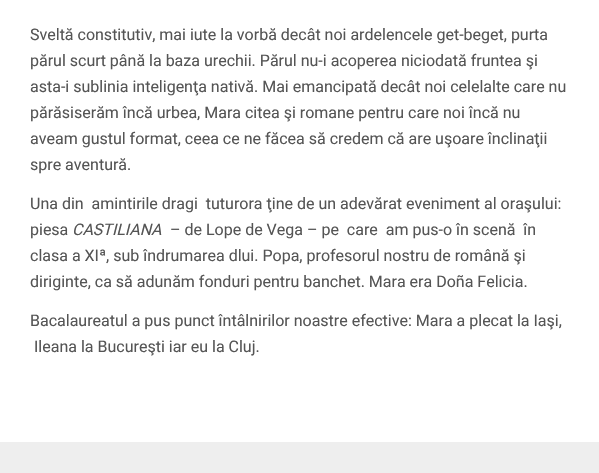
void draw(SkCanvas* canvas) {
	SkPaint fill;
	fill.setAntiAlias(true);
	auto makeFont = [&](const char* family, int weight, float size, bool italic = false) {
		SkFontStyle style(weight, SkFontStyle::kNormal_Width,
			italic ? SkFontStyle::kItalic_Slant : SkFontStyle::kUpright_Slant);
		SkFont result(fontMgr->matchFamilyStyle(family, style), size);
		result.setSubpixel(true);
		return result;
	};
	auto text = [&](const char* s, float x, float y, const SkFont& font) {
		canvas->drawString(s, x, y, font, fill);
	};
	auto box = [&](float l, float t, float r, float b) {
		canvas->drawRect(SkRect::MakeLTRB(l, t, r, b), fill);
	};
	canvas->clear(0xFFFFFFFF);
	fill.setColor(0xFFEEEEEE);
	box(0, 442, 599, 473);
	auto font1 = makeFont("Roboto", 400, 16);
	fill.setColor(0xFF555555);
	text("Sveltă constitutiv, mai iute la vorbă decât noi ardelencele get-beget, purta", 30, 40, font1);
	text("părul scurt până la baza urechii. Părul nu-i acoperea niciodată fruntea şi", 30, 66, font1);
	text("asta-i sublinia inteligenţa nativă. Mai emancipată decât noi celelalte care nu", 30, 92, font1);
	text("părăsiserăm încă urbea, Mara citea şi romane pentru care noi încă nu", 30, 118, font1);
	text("aveam gustul format, ceea ce ne făcea să credem că are uşoare înclinaţii", 30, 144, font1);
	text("spre aventură.", 30, 170, font1);
	text("Una din  amintirile dragi  tuturora ţine de un adevărat eveniment al oraşului:", 30, 209, font1);
	text("piesa", 30, 235, font1);
	auto font2 = makeFont("Roboto", 400, 16, true);
	text("CASTILIANA", 72, 235, font2);
	text("– de Lope de Vega – pe  care  am pus-o în scenă  în", 170, 235, font1);
	text("clasa a XIª, sub îndrumarea dlui. Popa, profesorul nostru de română şi", 30, 261, font1);
	text("diriginte, ca să adunăm fonduri pentru banchet. Mara era Doña Felicia.", 30, 287, font1);
	text("Bacalaureatul a pus punct întâlnirilor noastre efective: Mara a plecat la Iaşi,", 30, 326, font1);
	text("Ileana la Bucureşti iar eu la Cluj.", 34, 352, font1);
}
